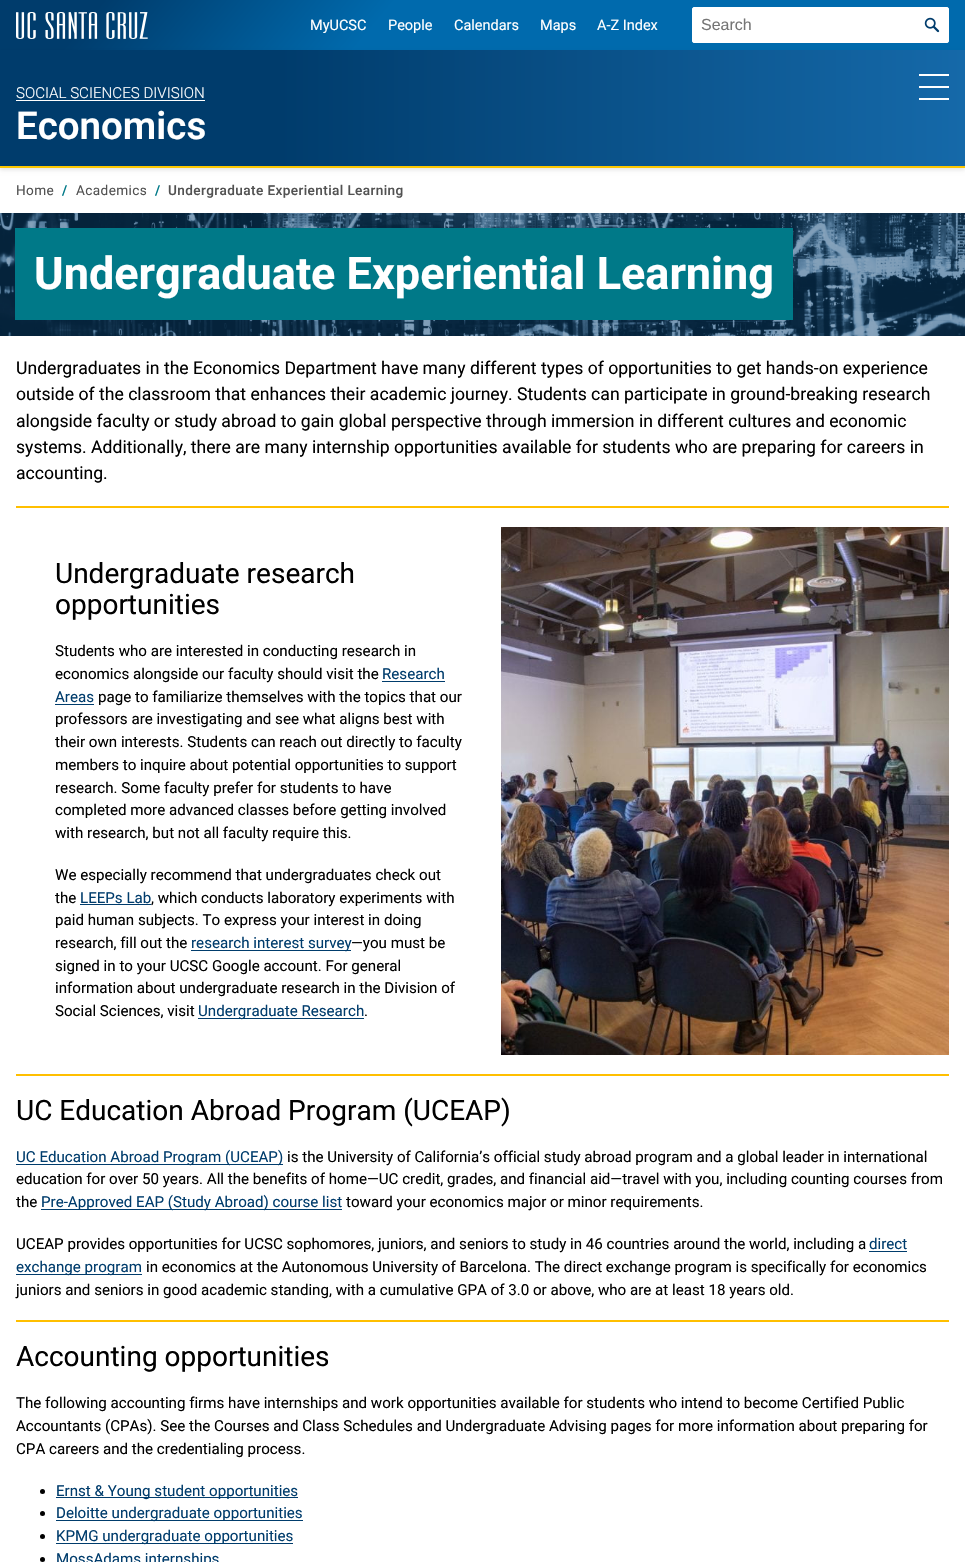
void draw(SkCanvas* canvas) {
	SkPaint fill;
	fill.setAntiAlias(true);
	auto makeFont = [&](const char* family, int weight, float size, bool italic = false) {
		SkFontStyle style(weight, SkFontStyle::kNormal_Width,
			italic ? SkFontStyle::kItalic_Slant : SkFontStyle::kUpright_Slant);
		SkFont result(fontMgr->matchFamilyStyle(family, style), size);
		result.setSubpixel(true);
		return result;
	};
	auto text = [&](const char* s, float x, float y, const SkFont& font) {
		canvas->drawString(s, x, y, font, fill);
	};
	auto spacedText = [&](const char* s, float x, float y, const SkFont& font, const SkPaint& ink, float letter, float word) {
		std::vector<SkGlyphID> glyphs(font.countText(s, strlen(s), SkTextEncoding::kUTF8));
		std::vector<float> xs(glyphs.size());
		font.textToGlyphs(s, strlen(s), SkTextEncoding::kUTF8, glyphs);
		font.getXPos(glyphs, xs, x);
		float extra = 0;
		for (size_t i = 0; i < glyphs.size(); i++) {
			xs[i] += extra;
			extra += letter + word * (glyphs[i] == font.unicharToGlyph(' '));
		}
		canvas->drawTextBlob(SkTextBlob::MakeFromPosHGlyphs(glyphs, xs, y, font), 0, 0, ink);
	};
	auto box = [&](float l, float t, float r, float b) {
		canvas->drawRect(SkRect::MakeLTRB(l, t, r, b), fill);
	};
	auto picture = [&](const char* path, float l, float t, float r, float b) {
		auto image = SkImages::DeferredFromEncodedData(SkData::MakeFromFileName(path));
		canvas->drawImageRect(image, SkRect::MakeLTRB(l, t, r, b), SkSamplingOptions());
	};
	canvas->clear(0xFFFFFFFF);
	fill.setColor(0xFF003C6C);
	box(0, 0, 16, 50);
	fill.setColor(0xFF006AAD);
	box(949, 0, 965, 50);
	{
		const SkColor colors[] = {0xFF003C6C, 0xFF006AAD};
		const float stops[] = {0.09f, 0.39f};
		const SkPoint ends[] = {{196, -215}, {769, 265}};
		fill.setShader(SkGradientShader::MakeLinear(ends, colors, stops, 2, SkTileMode::kClamp));
		fill.setAlpha(255);
	}
	box(16, 0, 949, 50);
	picture("image0.png", 16, 12, 148, 39);
	fill.setShader(nullptr);
	fill.setColor(0xFFFFFFFF);
	canvas->drawRoundRect(SkRect::MakeLTRB(692.5f, 7.5f, 948.5f, 42.5f), 1.5f, 1.5f, fill);
	fill.setStyle(SkPaint::kStroke_Style);
	fill.setStrokeWidth(1);
	canvas->drawRoundRect(SkRect::MakeLTRB(692.5f, 7.5f, 948.5f, 42.5f), 1.5f, 1.5f, fill);
	picture("image1.png", 924, 17, 940, 33);
	fill.setStyle(SkPaint::kFill_Style);
	fill.setColor(0x1A000000);
	fill.setMaskFilter(SkMaskFilter::MakeBlur(kNormal_SkBlurStyle, 2));
	canvas->drawRect(SkRect::MakeLTRB(0, 52, 965, 170), fill);
	fill.setMaskFilter(nullptr);
	{
		const SkColor colors[] = {0xFF003C6C, 0xFF1569A9};
		const float stops[] = {0.29f, 1};
		const SkPoint ends[] = {{0, 108}, {965, 108}};
		fill.setShader(SkGradientShader::MakeLinear(ends, colors, stops, 2, SkTileMode::kClamp));
		fill.setAlpha(255);
	}
	box(0, 50, 965, 166);
	fill.setShader(nullptr);
	fill.setColor(0xFFFFFFFF);
	box(16, 100, 205, 101);
	box(919, 74, 949, 76);
	box(919, 86, 949, 88);
	box(919, 98, 949, 100);
	fill.setColor(0xFFFDC700);
	box(0, 166, 965, 168);
	picture("image2.png", 0, 213, 965, 336);
	fill.setColor(0xFF007988);
	box(15, 228, 793, 320);
	fill.setColor(0xFFFFBF00);
	box(16, 506, 949, 508);
	fill.setColor(0xFF003C6C);
	box(382, 681, 445, 682);
	box(55, 704, 94, 705);
	box(80, 904, 151, 905);
	box(191, 950, 351, 951);
	box(198, 1018, 364, 1019);
	picture("image3.png", 501, 527, 949, 1055);
	fill.setColor(0xFFFFBF00);
	box(16, 1074, 949, 1076);
	fill.setColor(0xFF003C6C);
	box(16, 1164, 283, 1165);
	box(41, 1209, 342, 1210);
	box(869, 1251, 907, 1252);
	box(16, 1274, 142, 1275);
	fill.setColor(0xFFFFBF00);
	box(16, 1320, 949, 1322);
	fill.setColor(0xFF000000);
	canvas->drawCircle(42.5f, 1491.5f, 2.5f, fill);
	fill.setColor(0xFF003C6C);
	box(56, 1497, 298, 1498);
	fill.setColor(0xFF000000);
	canvas->drawCircle(42.5f, 1513.5f, 2.5f, fill);
	fill.setColor(0xFF003C6C);
	box(56, 1520, 303, 1521);
	fill.setColor(0xFF000000);
	canvas->drawCircle(42.5f, 1536.5f, 2.5f, fill);
	fill.setColor(0xFF003C6C);
	box(56, 1543, 293, 1544);
	fill.setColor(0xFF000000);
	canvas->drawCircle(42.5f, 1559.5f, 2.5f, fill);
	auto font1 = makeFont("Roboto", 400, 14.5f);
	fill.setColor(0xFFFFFFFF);
	text("MyUCSC", 310, 30, font1);
	text("People", 388, 30, font1);
	text("Calendars", 454, 30, font1);
	text("Maps", 540, 30, font1);
	text("A-Z Index", 597, 30, font1);
	auto font2 = makeFont("Liberation Sans", 400, 16);
	fill.setColor(0xFF757575);
	text("Search", 701, 30, font2);
	auto font3 = makeFont("Roboto", 300, 15.12f);
	fill.setColor(0xFFFFFFFF);
	text("SOCIAL SCIENCES DIVISION", 16, 98, font3);
	auto font4 = makeFont("Roboto", 600, 38.5f);
	text("Economics", 16, 139, font4);
	auto font5 = makeFont("Roboto", 400, 13.6f);
	fill.setColor(0xFF525252);
	spacedText("Home", 16, 195, font5, fill, 0.4f, 0);
	auto font6 = makeFont("Roboto", 600, 13.6f);
	fill.setColor(0xFF007988);
	spacedText("/", 62, 195, font6, fill, 0.4f, 0);
	fill.setColor(0xFF525252);
	spacedText("Academics", 76, 195, font5, fill, 0.4f, 0);
	fill.setColor(0xFF007988);
	spacedText("/", 155, 195, font6, fill, 0.4f, 0);
	auto font7 = makeFont("Roboto", 500, 13.6f);
	fill.setColor(0xFF525252);
	spacedText("Undergraduate Experiential Learning", 168, 195, font7, fill, 0.4f, 0);
	auto font8 = makeFont("Roboto", 700, 45);
	fill.setColor(0xFFFFFFFF);
	text("Undergraduate Experiential Learning", 34, 289, font8);
	auto font9 = makeFont("Roboto", 400, 17.6f);
	fill.setColor(0xFF000000);
	text("Undergraduates in the Economics Department have many different types of opportunities to get hands-on experience", 16, 374, font9);
	text("outside of the classroom that enhances their academic journey. Students can participate in ground-breaking research", 16, 400, font9);
	text("alongside faculty or study abroad to gain global perspective through immersion in different cultures and economic", 16, 427, font9);
	text("systems. Additionally, there are many internship opportunities available for students who are preparing for careers in", 16, 453, font9);
	text("accounting.", 16, 479, font9);
	auto font10 = makeFont("Roboto", 400, 28);
	text("Undergraduate research", 55, 583, font10);
	text("opportunities", 55, 614, font10);
	auto font11 = makeFont("Roboto", 400, 15.12f);
	text("Students who are interested in conducting research in", 55, 656, font11);
	text("economics alongside our faculty should visit the", 55, 679, font11);
	fill.setColor(0xFF003C6C);
	text("Research", 382, 679, font11);
	text("Areas", 55, 702, font11);
	fill.setColor(0xFF000000);
	text("page to familiarize themselves with the topics that our", 98, 702, font11);
	text("professors are investigating and see what aligns best with", 55, 724, font11);
	text("their own interests. Students can reach out directly to faculty", 55, 747, font11);
	text("members to inquire about potential opportunities to support", 55, 770, font11);
	text("research. Some faculty prefer for students to have", 55, 793, font11);
	text("completed more advanced classes before getting involved", 55, 815, font11);
	text("with research, but not all faculty require this.", 55, 838, font11);
	text("We especially recommend that undergraduates check out", 55, 880, font11);
	text("the", 55, 903, font11);
	fill.setColor(0xFF003C6C);
	text("LEEPs Lab", 80, 903, font11);
	fill.setColor(0xFF000000);
	text(", which conducts laboratory experiments with", 151, 903, font11);
	text("paid human subjects. To express your interest in doing", 55, 925, font11);
	text("research, fill out the", 55, 948, font11);
	fill.setColor(0xFF003C6C);
	text("research interest survey", 191, 948, font11);
	fill.setColor(0xFF000000);
	text("—you must be", 351, 948, font11);
	text("signed in to your UCSC Google account. For general", 55, 971, font11);
	text("information about undergraduate research in the Division of", 55, 993, font11);
	text("Social Sciences, visit", 55, 1016, font11);
	fill.setColor(0xFF003C6C);
	text("Undergraduate Research", 198, 1016, font11);
	fill.setColor(0xFF000000);
	text(".", 364, 1016, font11);
	text("UC Education Abroad Program (UCEAP)", 16, 1120, font10);
	fill.setColor(0xFF003C6C);
	text("UC Education Abroad Program (UCEAP)", 16, 1162, font11);
	fill.setColor(0xFF000000);
	text("is the University of California’s official study abroad program and a global leader in international", 287, 1162, font11);
	text("education for over 50 years. All the benefits of home—UC credit, grades, and financial aid—travel with you, including counting courses from", 16, 1184, font11);
	text("the", 16, 1207, font11);
	fill.setColor(0xFF003C6C);
	text("Pre-Approved EAP (Study Abroad) course list", 41, 1207, font11);
	fill.setColor(0xFF000000);
	text("toward your economics major or minor requirements.", 346, 1207, font11);
	text("UCEAP provides opportunities for UCSC sophomores, juniors, and seniors to study in 46 countries around the world, including a", 16, 1249, font11);
	fill.setColor(0xFF003C6C);
	text("direct", 869, 1249, font11);
	text("exchange program", 16, 1272, font11);
	fill.setColor(0xFF000000);
	text("in economics at the Autonomous University of Barcelona. The direct exchange program is specifically for economics", 146, 1272, font11);
	text("juniors and seniors in good academic standing, with a cumulative GPA of 3.0 or above, who are at least 18 years old.", 16, 1295, font11);
	text("Accounting opportunities", 16, 1366, font10);
	text("The following accounting firms have internships and work opportunities available for students who intend to become Certified Public", 16, 1408, font11);
	text("Accountants (CPAs). See the Courses and Class Schedules and Undergraduate Advising pages for more information about preparing for", 16, 1431, font11);
	text("CPA careers and the credentialing process.", 16, 1454, font11);
	fill.setColor(0xFF003C6C);
	text("Ernst & Young student opportunities", 56, 1496, font11);
	text("Deloitte undergraduate opportunities", 56, 1518, font11);
	text("KPMG undergraduate opportunities", 56, 1541, font11);
	text("MossAdams internships", 56, 1564, font11);
}
